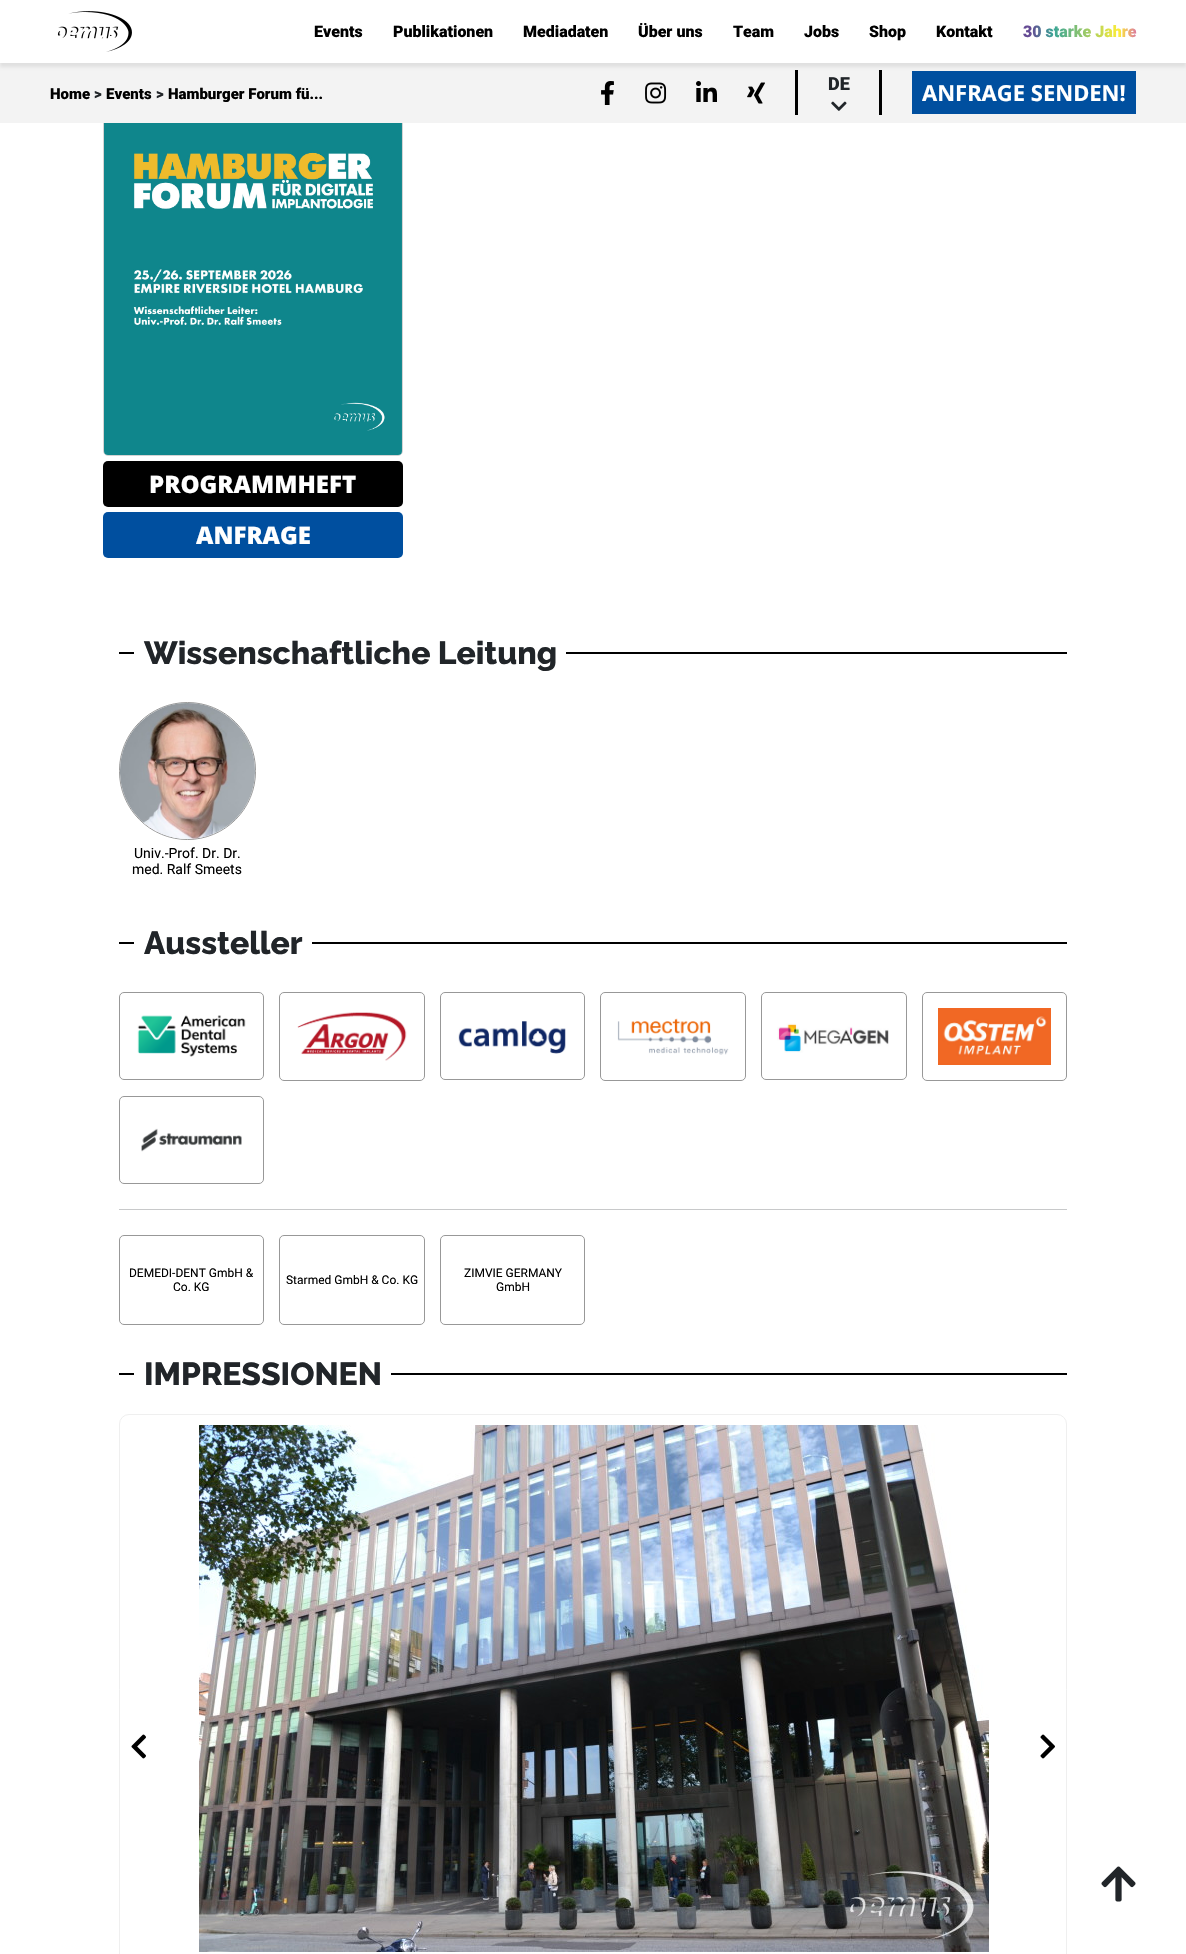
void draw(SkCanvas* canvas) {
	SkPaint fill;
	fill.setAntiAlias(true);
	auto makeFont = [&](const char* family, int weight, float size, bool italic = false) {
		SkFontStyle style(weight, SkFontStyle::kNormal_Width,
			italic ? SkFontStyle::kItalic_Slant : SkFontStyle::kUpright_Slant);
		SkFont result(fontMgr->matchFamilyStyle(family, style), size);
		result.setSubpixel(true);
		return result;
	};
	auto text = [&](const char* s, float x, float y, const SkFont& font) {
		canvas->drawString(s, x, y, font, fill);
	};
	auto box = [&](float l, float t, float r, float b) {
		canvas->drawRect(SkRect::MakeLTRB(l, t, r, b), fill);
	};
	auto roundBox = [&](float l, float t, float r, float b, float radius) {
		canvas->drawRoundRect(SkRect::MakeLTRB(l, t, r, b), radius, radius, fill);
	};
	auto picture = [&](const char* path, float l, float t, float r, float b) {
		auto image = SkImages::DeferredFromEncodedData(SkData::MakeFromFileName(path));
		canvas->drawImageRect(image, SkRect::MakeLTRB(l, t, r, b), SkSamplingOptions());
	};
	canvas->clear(0xFFFFFFFF);
	fill.setStyle(SkPaint::kStroke_Style);
	fill.setStrokeWidth(1);
	fill.setColor(0xFFD3D3D3);
	canvas->drawRoundRect(SkRect::MakeLTRB(103.5f, -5.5f, 402.5f, 455.5f), 4.5f, 4.5f, fill);
	fill.setStyle(SkPaint::kFill_Style);
	fill.setColor(0xFFF3F3F3);
	box(0, 63, 1186, 123);
	fill.setColor(0xFF004F9F);
	box(912, 71, 1136, 114);
	fill.setColor(0x14000000);
	fill.setMaskFilter(SkMaskFilter::MakeBlur(kNormal_SkBlurStyle, 1.5f));
	canvas->drawRect(SkRect::MakeLTRB(0, 4, 1186, 67), fill);
	fill.setMaskFilter(nullptr);
	fill.setColor(0xFFFFFFFF);
	box(0, 0, 1186, 63);
	picture("image0.png", 57, 11, 132, 52);
	picture("image1.png", 601, 81, 614, 105);
	picture("image2.png", 645, 82, 667, 104);
	picture("image3.png", 696, 81, 717, 102);
	picture("image4.png", 747, 82, 765, 104);
	fill.setColor(0xFF000000);
	box(879, 70, 882, 115);
	box(795, 70, 798, 115);
	picture("image5.png", 831, 101, 847, 111);
	picture("image6.png", 104, 123, 402, 455);
	roundBox(103, 461, 403, 507, 5);
	fill.setColor(0xFF004F9F);
	roundBox(103, 512, 403, 558, 5);
	fill.setColor(0xFF000000);
	box(119, 652, 1067, 654);
	fill.setColor(0xFFFFFFFF);
	box(134, 652, 566, 654);
	fill.setStyle(SkPaint::kStroke_Style);
	fill.setColor(0xFF989898);
	canvas->drawRoundRect(SkRect::MakeLTRB(119.5f, 702.5f, 255.5f, 839.5f), 68, 68, fill);
	picture("image7.png", 120, 703, 255, 839);
	fill.setStyle(SkPaint::kFill_Style);
	fill.setColor(0xFF000000);
	box(119, 942, 1067, 944);
	fill.setColor(0xFFFFFFFF);
	box(134, 942, 312, 944);
	fill.setStyle(SkPaint::kStroke_Style);
	fill.setColor(0xFF989898);
	canvas->drawRoundRect(SkRect::MakeLTRB(119.5f, 992.5f, 263.5f, 1079.5f), 4.5f, 4.5f, fill);
	picture("image8.png", 137, 1015, 246, 1057);
	canvas->drawRoundRect(SkRect::MakeLTRB(279.5f, 992.5f, 424.5f, 1080.5f), 4.5f, 4.5f, fill);
	picture("image9.png", 297, 1012, 407, 1061);
	canvas->drawRoundRect(SkRect::MakeLTRB(440.5f, 992.5f, 584.5f, 1079.5f), 4.5f, 4.5f, fill);
	picture("image10.png", 458, 1021, 566, 1054);
	canvas->drawRoundRect(SkRect::MakeLTRB(600.5f, 992.5f, 745.5f, 1080.5f), 4.5f, 4.5f, fill);
	picture("image11.png", 617, 1018, 729, 1055);
	canvas->drawRoundRect(SkRect::MakeLTRB(761.5f, 992.5f, 906.5f, 1079.5f), 4.5f, 4.5f, fill);
	picture("image12.png", 777, 1023, 889, 1053);
	canvas->drawRoundRect(SkRect::MakeLTRB(922.5f, 992.5f, 1066.5f, 1080.5f), 4.5f, 4.5f, fill);
	picture("image13.png", 938, 1008, 1051, 1065);
	canvas->drawRoundRect(SkRect::MakeLTRB(119.5f, 1096.5f, 263.5f, 1183.5f), 4.5f, 4.5f, fill);
	picture("image14.png", 141, 1128, 242, 1152);
	fill.setStyle(SkPaint::kFill_Style);
	fill.setColor(0xFFC8C9CA);
	box(119, 1209, 1067, 1210);
	fill.setStyle(SkPaint::kStroke_Style);
	fill.setColor(0xFF989898);
	canvas->drawRoundRect(SkRect::MakeLTRB(119.5f, 1235.5f, 263.5f, 1324.5f), 4.5f, 4.5f, fill);
	canvas->drawRoundRect(SkRect::MakeLTRB(279.5f, 1235.5f, 424.5f, 1324.5f), 4.5f, 4.5f, fill);
	canvas->drawRoundRect(SkRect::MakeLTRB(440.5f, 1235.5f, 584.5f, 1324.5f), 4.5f, 4.5f, fill);
	fill.setStyle(SkPaint::kFill_Style);
	fill.setColor(0xFF000000);
	box(119, 1373, 1067, 1375);
	fill.setColor(0xFFFFFFFF);
	box(134, 1373, 391, 1375);
	fill.setStyle(SkPaint::kStroke_Style);
	fill.setColor(0xFFEFEFEF);
	canvas->drawRoundRect(SkRect::MakeLTRB(119.5f, 1414.5f, 1066.5f, 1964.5f), 9.5f, 9.5f, fill);
	picture("image15.png", 199, 1425, 989, 1952);
	picture("image16.png", 131, 1734, 146, 1759);
	picture("image17.png", 1040, 1734, 1055, 1759);
	picture("image18.png", 1101, 1866, 1136, 1902);
	auto font1 = makeFont("Roboto", 900, 16);
	fill.setStyle(SkPaint::kFill_Style);
	fill.setColor(0xFF000000);
	text("Events", 314, 37, font1);
	text("Publikationen", 393, 37, font1);
	text("Mediadaten", 523, 37, font1);
	text("Über uns", 638, 37, font1);
	text("Team", 733, 37, font1);
	text("Jobs", 804, 37, font1);
	text("Shop", 869, 37, font1);
	text("Kontakt", 936, 37, font1);
	{
		const SkColor colors[] = {0xFF654B94, 0xFF3AA696, 0xFFFEED37, 0xFFDC7B9E};
		const float stops[] = {0.07f, 0.27f, 0.85f, 1};
		const SkPoint ends[] = {{1023, 31}, {1136, 31}};
		fill.setShader(SkGradientShader::MakeLinear(ends, colors, stops, 4, SkTileMode::kClamp));
		fill.setAlpha(255);
	}
	text("30 starke Jahre", 1023, 37, font1);
	auto font2 = makeFont("Roboto", 900, 15);
	fill.setShader(nullptr);
	fill.setColor(0xFF000000);
	text("Home", 50, 99, font2);
	fill.setColor(0xFF212529);
	text(">", 94, 99, font2);
	fill.setColor(0xFF000000);
	text("Events", 106, 99, font2);
	fill.setColor(0xFF212529);
	text(">", 156, 99, font2);
	fill.setColor(0xFF000000);
	text("Hamburger Forum fü...", 168, 99, font2);
	auto font3 = makeFont("Roboto", 900, 18);
	fill.setColor(0xFF212529);
	text("DE", 828, 90, font3);
	auto font4 = makeFont("Noto Sans", 700, 22);
	fill.setColor(0xFFFFFFFF);
	text("ANFRAGE SENDEN!", 922, 101, font4);
	auto font5 = makeFont("Noto Sans", 900, 24);
	text("PROGRAMMHEFT", 149, 493, font5);
	text("ANFRAGE", 196, 544, font5);
	auto font6 = makeFont("Raleway", 100, 31.9f);
	fill.setColor(0xFF212529);
	text("Wissenschaftliche Leitung", 144, 664, font6);
	auto font7 = makeFont("Roboto", 400, 14);
	fill.setColor(0xFF000000);
	text("Univ.-Prof. Dr. Dr.", 134, 858, font7);
	text("med. Ralf Smeets", 132, 874, font7);
	fill.setColor(0xFF212529);
	text("Aussteller", 144, 954, font6);
	auto font8 = makeFont("Roboto", 400, 12);
	fill.setColor(0xFF000000);
	text("DEMEDI-DENT GmbH &", 129, 1277, font8);
	text("Co. KG", 173, 1291, font8);
	text("Starmed GmbH & Co. KG", 286, 1284, font8);
	text("ZIMVIE GERMANY", 464, 1277, font8);
	text("GmbH", 496, 1291, font8);
	fill.setColor(0xFF212529);
	text("IMPRESSIONEN", 144, 1385, font6);
}
